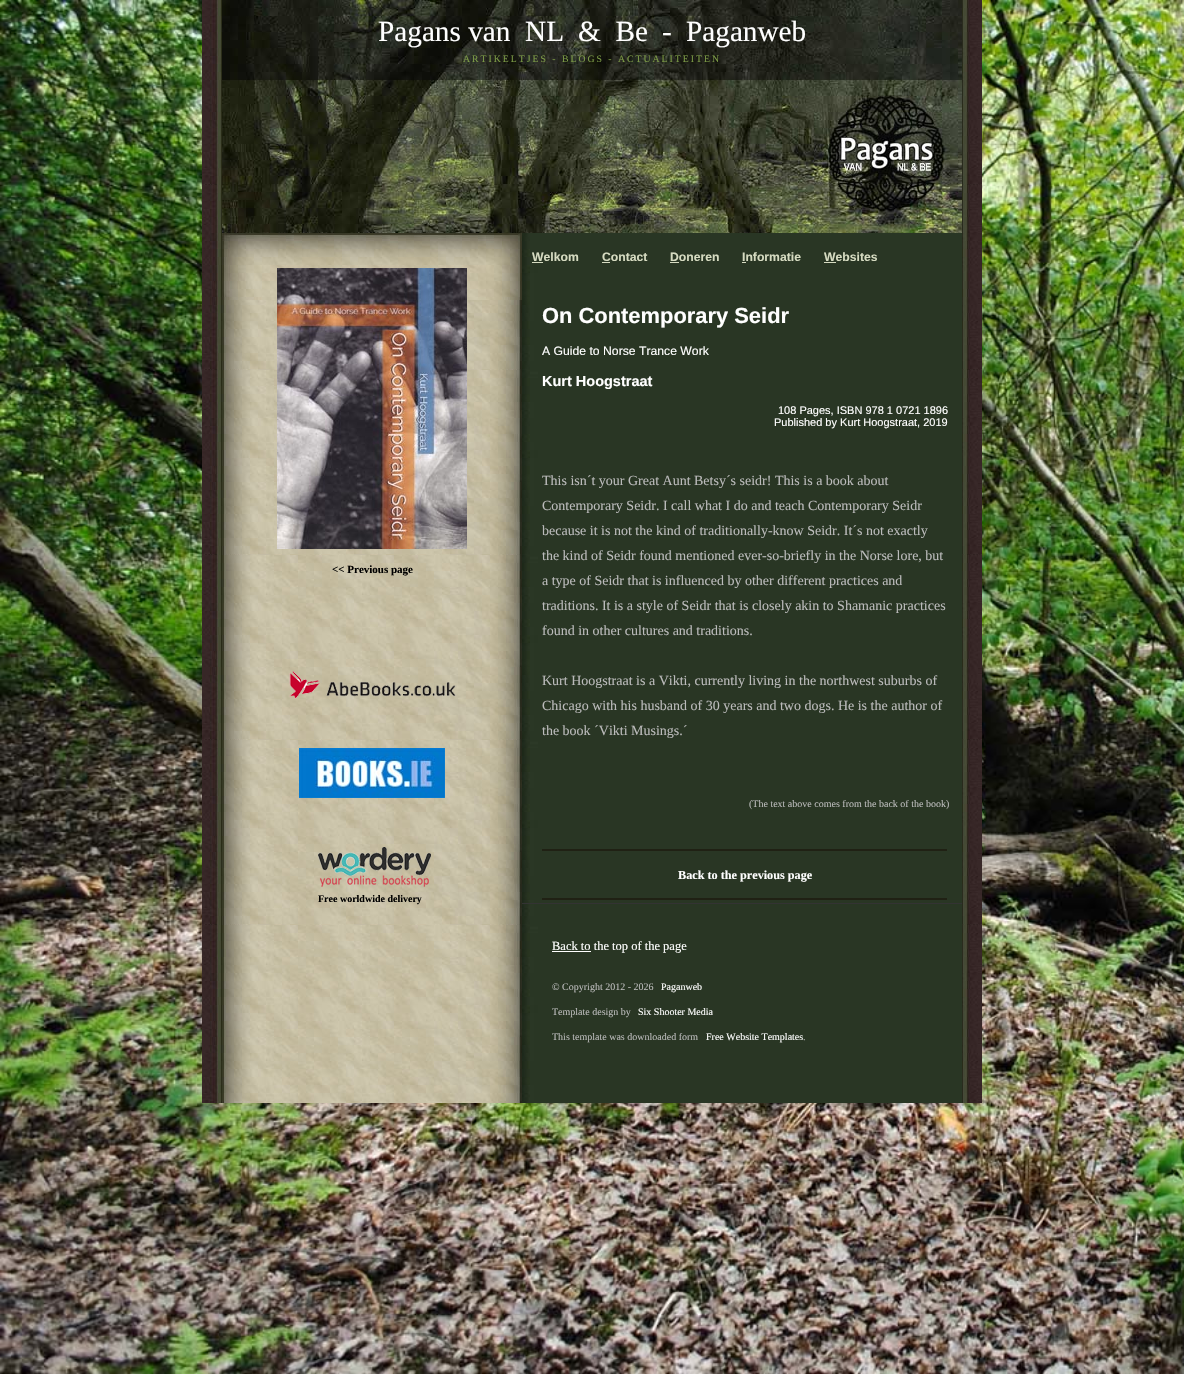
void draw(SkCanvas* canvas) {
	SkPaint fill;
	fill.setAntiAlias(true);
	auto makeFont = [&](const char* family, int weight, float size, bool italic = false) {
		SkFontStyle style(weight, SkFontStyle::kNormal_Width,
			italic ? SkFontStyle::kItalic_Slant : SkFontStyle::kUpright_Slant);
		SkFont result(fontMgr->matchFamilyStyle(family, style), size);
		result.setSubpixel(true);
		return result;
	};
	auto text = [&](const char* s, float x, float y, const SkFont& font) {
		canvas->drawString(s, x, y, font, fill);
	};
	auto spacedText = [&](const char* s, float x, float y, const SkFont& font, const SkPaint& ink, float letter, float word) {
		std::vector<SkGlyphID> glyphs(font.countText(s, strlen(s), SkTextEncoding::kUTF8));
		std::vector<float> xs(glyphs.size());
		font.textToGlyphs(s, strlen(s), SkTextEncoding::kUTF8, glyphs);
		font.getXPos(glyphs, xs, x);
		float extra = 0;
		for (size_t i = 0; i < glyphs.size(); i++) {
			xs[i] += extra;
			extra += letter + word * (glyphs[i] == font.unicharToGlyph(' '));
		}
		canvas->drawTextBlob(SkTextBlob::MakeFromPosHGlyphs(glyphs, xs, y, font), 0, 0, ink);
	};
	auto box = [&](float l, float t, float r, float b) {
		canvas->drawRect(SkRect::MakeLTRB(l, t, r, b), fill);
	};
	auto picture = [&](const char* path, float l, float t, float r, float b) {
		auto image = SkImages::DeferredFromEncodedData(SkData::MakeFromFileName(path));
		canvas->drawImageRect(image, SkRect::MakeLTRB(l, t, r, b), SkSamplingOptions());
	};
	canvas->clear(0xFFFFFFFF);
	picture("image0.png", 0, 0, 1184, 1374);
	picture("image1.png", 202, 0, 982, 1103);
	picture("image2.png", 222, 0, 962, 233);
	picture("image3.png", 222, 233, 522, 300);
	picture("image4.png", 277, 268, 467, 549);
	picture("image5.png", 289, 671, 457, 699);
	picture("image6.png", 299, 748, 445, 798);
	picture("image7.png", 318, 847, 431, 887);
	fill.setColor(0xFFD6DBC1);
	box(532, 262, 543, 263);
	box(602, 262, 610, 263);
	box(670, 262, 679, 263);
	box(742, 262, 746, 263);
	box(824, 262, 836, 263);
	fill.setColor(0xFF202114);
	box(542, 849, 947, 851);
	box(542, 898, 947, 900);
	fill.setColor(0xFF333333);
	box(522, 903, 962, 904);
	fill.setColor(0xFFFFFFFF);
	box(552, 951, 591, 952);
	auto font1 = makeFont("Liberation Serif", 400, 29.25f);
	text("Pagans van  NL", 378, 41, font1);
	text("&  Be", 578, 41, font1);
	text("-", 662, 41, font1);
	text("Paganweb", 686, 41, font1);
	auto font2 = makeFont("Liberation Serif", 400, 9.75f);
	fill.setColor(0xFF7C9B46);
	spacedText("ARTIKELTJES - BLOGS - ACTUALITEITEN", 463, 62, font2, fill, 2, 0);
	auto font3 = makeFont("Liberation Serif", 700, 11);
	fill.setColor(0xFF000000);
	text("<< Previous page", 332, 573, font3);
	auto font4 = makeFont("Liberation Serif", 700, 10);
	text("Free worldwide delivery", 318, 902, font4);
	auto font5 = makeFont("Liberation Sans", 700, 12.2f);
	fill.setColor(0xFFD6DBC1);
	text("Welkom", 532, 261, font5);
	text("Contact", 602, 261, font5);
	text("Doneren", 670, 261, font5);
	text("Informatie", 742, 261, font5);
	text("Websites", 824, 261, font5);
	auto font6 = makeFont("Liberation Sans", 700, 21.9f);
	fill.setColor(0xFFFFFFFF);
	text("On Contemporary Seidr", 542, 323, font6);
	auto font7 = makeFont("Liberation Sans", 400, 12.2f);
	text("A Guide to Norse Trance Work", 542, 355, font7);
	auto font8 = makeFont("Liberation Sans", 700, 14.5f);
	text("Kurt Hoogstraat", 542, 386, font8);
	auto font9 = makeFont("Liberation Sans", 400, 11);
	text("108 Pages, ISBN 978 1 0721 1896", 778, 414, font9);
	text("Published by Kurt Hoogstraat, 2019", 774, 426, font9);
	auto font10 = makeFont("Liberation Serif", 400, 14);
	fill.setColor(0xFFBBBBBB);
	text("This isn´t your Great Aunt Betsy´s seidr! This is a book about", 542, 485, font10);
	text("Contemporary Seidr. I call what I do and teach Contemporary Seidr", 542, 510, font10);
	text("because it is not the kind of traditionally-know Seidr. It´s not exactly", 542, 535, font10);
	text("the kind of Seidr found mentioned ever-so-briefly in the Norse lore, but", 542, 560, font10);
	text("a type of Seidr that is influenced by other different practices and", 542, 585, font10);
	text("traditions. It is a style of Seidr that is closely akin to Shamanic practices", 542, 610, font10);
	text("found in other cultures and traditions.", 542, 635, font10);
	text("Kurt Hoogstraat is a Vikti, currently living in the northwest suburbs of", 542, 685, font10);
	text("Chicago with his husband of 30 years and two dogs. He is the author of", 542, 710, font10);
	text("the book ´Vikti Musings.´", 542, 735, font10);
	auto font11 = makeFont("Liberation Serif", 400, 10);
	text("(The text above comes from the back of the book)", 749, 807, font11);
	auto font12 = makeFont("Liberation Serif", 700, 12.2f);
	fill.setColor(0xFFFFFFFF);
	text("Back to the previous page", 678, 879, font12);
	auto font13 = makeFont("Liberation Serif", 400, 12.5f);
	text("Back to the top of the page", 552, 950, font13);
	fill.setColor(0xFFBBBBBB);
	text("© Copyright 2012 - 2026", 552, 990, font11);
	fill.setColor(0xFFFFFFFF);
	text("Paganweb", 661, 990, font11);
	fill.setColor(0xFFBBBBBB);
	text("Template design by", 552, 1015, font11);
	fill.setColor(0xFFFFFFFF);
	text("Six Shooter Media", 638, 1015, font11);
	fill.setColor(0xFFBBBBBB);
	text("This template was downloaded form", 552, 1040, font11);
	fill.setColor(0xFFFFFFFF);
	text("Free Website Templates", 706, 1040, font11);
	fill.setColor(0xFFBBBBBB);
	text(".", 803, 1040, font11);
}
